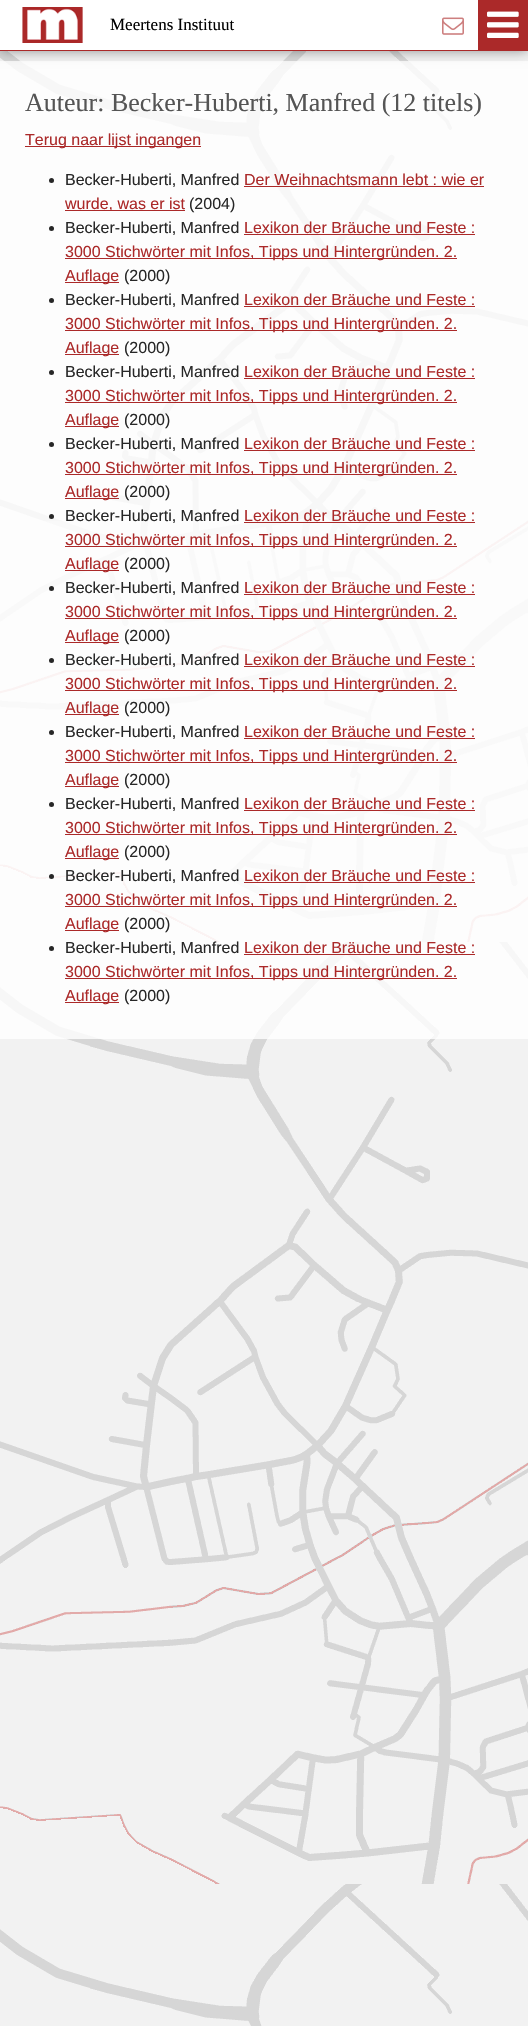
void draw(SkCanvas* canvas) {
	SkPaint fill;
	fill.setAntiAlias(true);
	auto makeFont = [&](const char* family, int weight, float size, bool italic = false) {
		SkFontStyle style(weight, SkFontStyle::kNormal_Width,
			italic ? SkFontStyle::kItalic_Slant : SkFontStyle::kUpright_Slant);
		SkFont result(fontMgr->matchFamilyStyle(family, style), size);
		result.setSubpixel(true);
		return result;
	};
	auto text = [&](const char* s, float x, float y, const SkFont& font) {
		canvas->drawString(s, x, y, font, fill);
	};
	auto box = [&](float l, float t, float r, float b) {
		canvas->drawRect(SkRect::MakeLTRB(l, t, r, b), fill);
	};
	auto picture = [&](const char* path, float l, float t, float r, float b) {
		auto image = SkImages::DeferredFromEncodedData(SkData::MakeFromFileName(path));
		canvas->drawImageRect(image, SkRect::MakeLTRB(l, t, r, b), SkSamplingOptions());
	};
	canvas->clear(0xFFFFFFFF);
	picture("image0.png", 0, 51, 528, 2026);
	fill.setColor(0xCCFFFFFF);
	box(0, 61, 528, 1039);
	fill.setColor(0x66000000);
	fill.setMaskFilter(SkMaskFilter::MakeBlur(kNormal_SkBlurStyle, 6));
	canvas->drawRect(SkRect::MakeLTRB(0, 0, 528, 51), fill);
	fill.setMaskFilter(nullptr);
	fill.setColor(0xFFFFFFFF);
	box(0, 0, 478, 50);
	fill.setColor(0xFFAB2929);
	box(0, 50, 528, 51);
	box(478, 0, 528, 50);
	picture("image1.png", 487, 11, 519, 38);
	picture("image2.png", 22, 7, 83, 43);
	picture("image3.png", 442, 17, 464, 35);
	fill.setColor(0x4DFFFFFF);
	box(0, 521, 528, 942);
	fill.setColor(0xFFAB2929);
	box(25, 146, 201, 147);
	fill.setColor(0xFF272727);
	canvas->drawCircle(51.5f, 180.5f, 2.5f, fill);
	fill.setColor(0xFFAB2929);
	box(244, 186, 484, 187);
	box(65, 210, 185, 211);
	fill.setColor(0xFF272727);
	canvas->drawCircle(51.5f, 228.5f, 2.5f, fill);
	fill.setColor(0xFFAB2929);
	box(244, 234, 475, 235);
	box(65, 258, 457, 259);
	box(65, 282, 119, 283);
	fill.setColor(0xFF272727);
	canvas->drawCircle(51.5f, 300.5f, 2.5f, fill);
	fill.setColor(0xFFAB2929);
	box(244, 306, 475, 307);
	box(65, 330, 457, 331);
	box(65, 354, 119, 355);
	fill.setColor(0xFF272727);
	canvas->drawCircle(51.5f, 372.5f, 2.5f, fill);
	fill.setColor(0xFFAB2929);
	box(244, 378, 475, 379);
	box(65, 402, 457, 403);
	box(65, 426, 119, 427);
	fill.setColor(0xFF272727);
	canvas->drawCircle(51.5f, 444.5f, 2.5f, fill);
	fill.setColor(0xFFAB2929);
	box(244, 450, 475, 451);
	box(65, 474, 457, 475);
	box(65, 498, 119, 499);
	fill.setColor(0xFF272727);
	canvas->drawCircle(51.5f, 516.5f, 2.5f, fill);
	fill.setColor(0xFFAB2929);
	box(244, 522, 475, 523);
	box(65, 546, 457, 547);
	box(65, 570, 119, 571);
	fill.setColor(0xFF272727);
	canvas->drawCircle(51.5f, 588.5f, 2.5f, fill);
	fill.setColor(0xFFAB2929);
	box(244, 594, 475, 595);
	box(65, 618, 457, 619);
	box(65, 642, 119, 643);
	fill.setColor(0xFF272727);
	canvas->drawCircle(51.5f, 660.5f, 2.5f, fill);
	fill.setColor(0xFFAB2929);
	box(244, 666, 475, 667);
	box(65, 690, 457, 691);
	box(65, 714, 119, 715);
	fill.setColor(0xFF272727);
	canvas->drawCircle(51.5f, 732.5f, 2.5f, fill);
	fill.setColor(0xFFAB2929);
	box(244, 738, 475, 739);
	box(65, 762, 457, 763);
	box(65, 786, 119, 787);
	fill.setColor(0xFF272727);
	canvas->drawCircle(51.5f, 804.5f, 2.5f, fill);
	fill.setColor(0xFFAB2929);
	box(244, 810, 475, 811);
	box(65, 834, 457, 835);
	box(65, 858, 119, 859);
	fill.setColor(0xFF272727);
	canvas->drawCircle(51.5f, 876.5f, 2.5f, fill);
	fill.setColor(0xFFAB2929);
	box(244, 882, 475, 883);
	box(65, 906, 457, 907);
	box(65, 930, 119, 931);
	fill.setColor(0xFF272727);
	canvas->drawCircle(51.5f, 948.5f, 2.5f, fill);
	fill.setColor(0xFFAB2929);
	box(244, 954, 475, 955);
	box(65, 978, 457, 979);
	box(65, 1002, 119, 1003);
	auto font1 = makeFont("Liberation Serif", 400, 17);
	fill.setColor(0xFF000000);
	text("Meertens Instituut", 110, 30, font1);
	auto font2 = makeFont("Liberation Serif", 400, 26);
	fill.setColor(0xFF555555);
	text("Auteur: Becker-Huberti, Manfred (12 titels)", 25, 111, font2);
	auto font3 = makeFont("Liberation Sans", 400, 16);
	fill.setColor(0xFFAB2929);
	text("Terug naar lijst ingangen", 25, 145, font3);
	fill.setColor(0xFF272727);
	text("Becker-Huberti, Manfred", 65, 185, font3);
	fill.setColor(0xFFAB2929);
	text("Der Weihnachtsmann lebt : wie er", 244, 185, font3);
	text("wurde, was er ist", 65, 209, font3);
	fill.setColor(0xFF272727);
	text("(2004)", 189, 209, font3);
	text("Becker-Huberti, Manfred", 65, 233, font3);
	fill.setColor(0xFFAB2929);
	text("Lexikon der Bräuche und Feste :", 244, 233, font3);
	text("3000 Stichwörter mit Infos, Tipps und Hintergründen. 2.", 65, 257, font3);
	text("Auflage", 65, 281, font3);
	fill.setColor(0xFF272727);
	text("(2000)", 124, 281, font3);
	text("Becker-Huberti, Manfred", 65, 305, font3);
	fill.setColor(0xFFAB2929);
	text("Lexikon der Bräuche und Feste :", 244, 305, font3);
	text("3000 Stichwörter mit Infos, Tipps und Hintergründen. 2.", 65, 329, font3);
	text("Auflage", 65, 353, font3);
	fill.setColor(0xFF272727);
	text("(2000)", 124, 353, font3);
	text("Becker-Huberti, Manfred", 65, 377, font3);
	fill.setColor(0xFFAB2929);
	text("Lexikon der Bräuche und Feste :", 244, 377, font3);
	text("3000 Stichwörter mit Infos, Tipps und Hintergründen. 2.", 65, 401, font3);
	text("Auflage", 65, 425, font3);
	fill.setColor(0xFF272727);
	text("(2000)", 124, 425, font3);
	text("Becker-Huberti, Manfred", 65, 449, font3);
	fill.setColor(0xFFAB2929);
	text("Lexikon der Bräuche und Feste :", 244, 449, font3);
	text("3000 Stichwörter mit Infos, Tipps und Hintergründen. 2.", 65, 473, font3);
	text("Auflage", 65, 497, font3);
	fill.setColor(0xFF272727);
	text("(2000)", 124, 497, font3);
	text("Becker-Huberti, Manfred", 65, 521, font3);
	fill.setColor(0xFFAB2929);
	text("Lexikon der Bräuche und Feste :", 244, 521, font3);
	text("3000 Stichwörter mit Infos, Tipps und Hintergründen. 2.", 65, 545, font3);
	text("Auflage", 65, 569, font3);
	fill.setColor(0xFF272727);
	text("(2000)", 124, 569, font3);
	text("Becker-Huberti, Manfred", 65, 593, font3);
	fill.setColor(0xFFAB2929);
	text("Lexikon der Bräuche und Feste :", 244, 593, font3);
	text("3000 Stichwörter mit Infos, Tipps und Hintergründen. 2.", 65, 617, font3);
	text("Auflage", 65, 641, font3);
	fill.setColor(0xFF272727);
	text("(2000)", 124, 641, font3);
	text("Becker-Huberti, Manfred", 65, 665, font3);
	fill.setColor(0xFFAB2929);
	text("Lexikon der Bräuche und Feste :", 244, 665, font3);
	text("3000 Stichwörter mit Infos, Tipps und Hintergründen. 2.", 65, 689, font3);
	text("Auflage", 65, 713, font3);
	fill.setColor(0xFF272727);
	text("(2000)", 124, 713, font3);
	text("Becker-Huberti, Manfred", 65, 737, font3);
	fill.setColor(0xFFAB2929);
	text("Lexikon der Bräuche und Feste :", 244, 737, font3);
	text("3000 Stichwörter mit Infos, Tipps und Hintergründen. 2.", 65, 761, font3);
	text("Auflage", 65, 785, font3);
	fill.setColor(0xFF272727);
	text("(2000)", 124, 785, font3);
	text("Becker-Huberti, Manfred", 65, 809, font3);
	fill.setColor(0xFFAB2929);
	text("Lexikon der Bräuche und Feste :", 244, 809, font3);
	text("3000 Stichwörter mit Infos, Tipps und Hintergründen. 2.", 65, 833, font3);
	text("Auflage", 65, 857, font3);
	fill.setColor(0xFF272727);
	text("(2000)", 124, 857, font3);
	text("Becker-Huberti, Manfred", 65, 881, font3);
	fill.setColor(0xFFAB2929);
	text("Lexikon der Bräuche und Feste :", 244, 881, font3);
	text("3000 Stichwörter mit Infos, Tipps und Hintergründen. 2.", 65, 905, font3);
	text("Auflage", 65, 929, font3);
	fill.setColor(0xFF272727);
	text("(2000)", 124, 929, font3);
	text("Becker-Huberti, Manfred", 65, 953, font3);
	fill.setColor(0xFFAB2929);
	text("Lexikon der Bräuche und Feste :", 244, 953, font3);
	text("3000 Stichwörter mit Infos, Tipps und Hintergründen. 2.", 65, 977, font3);
	text("Auflage", 65, 1001, font3);
	fill.setColor(0xFF272727);
	text("(2000)", 124, 1001, font3);
}
